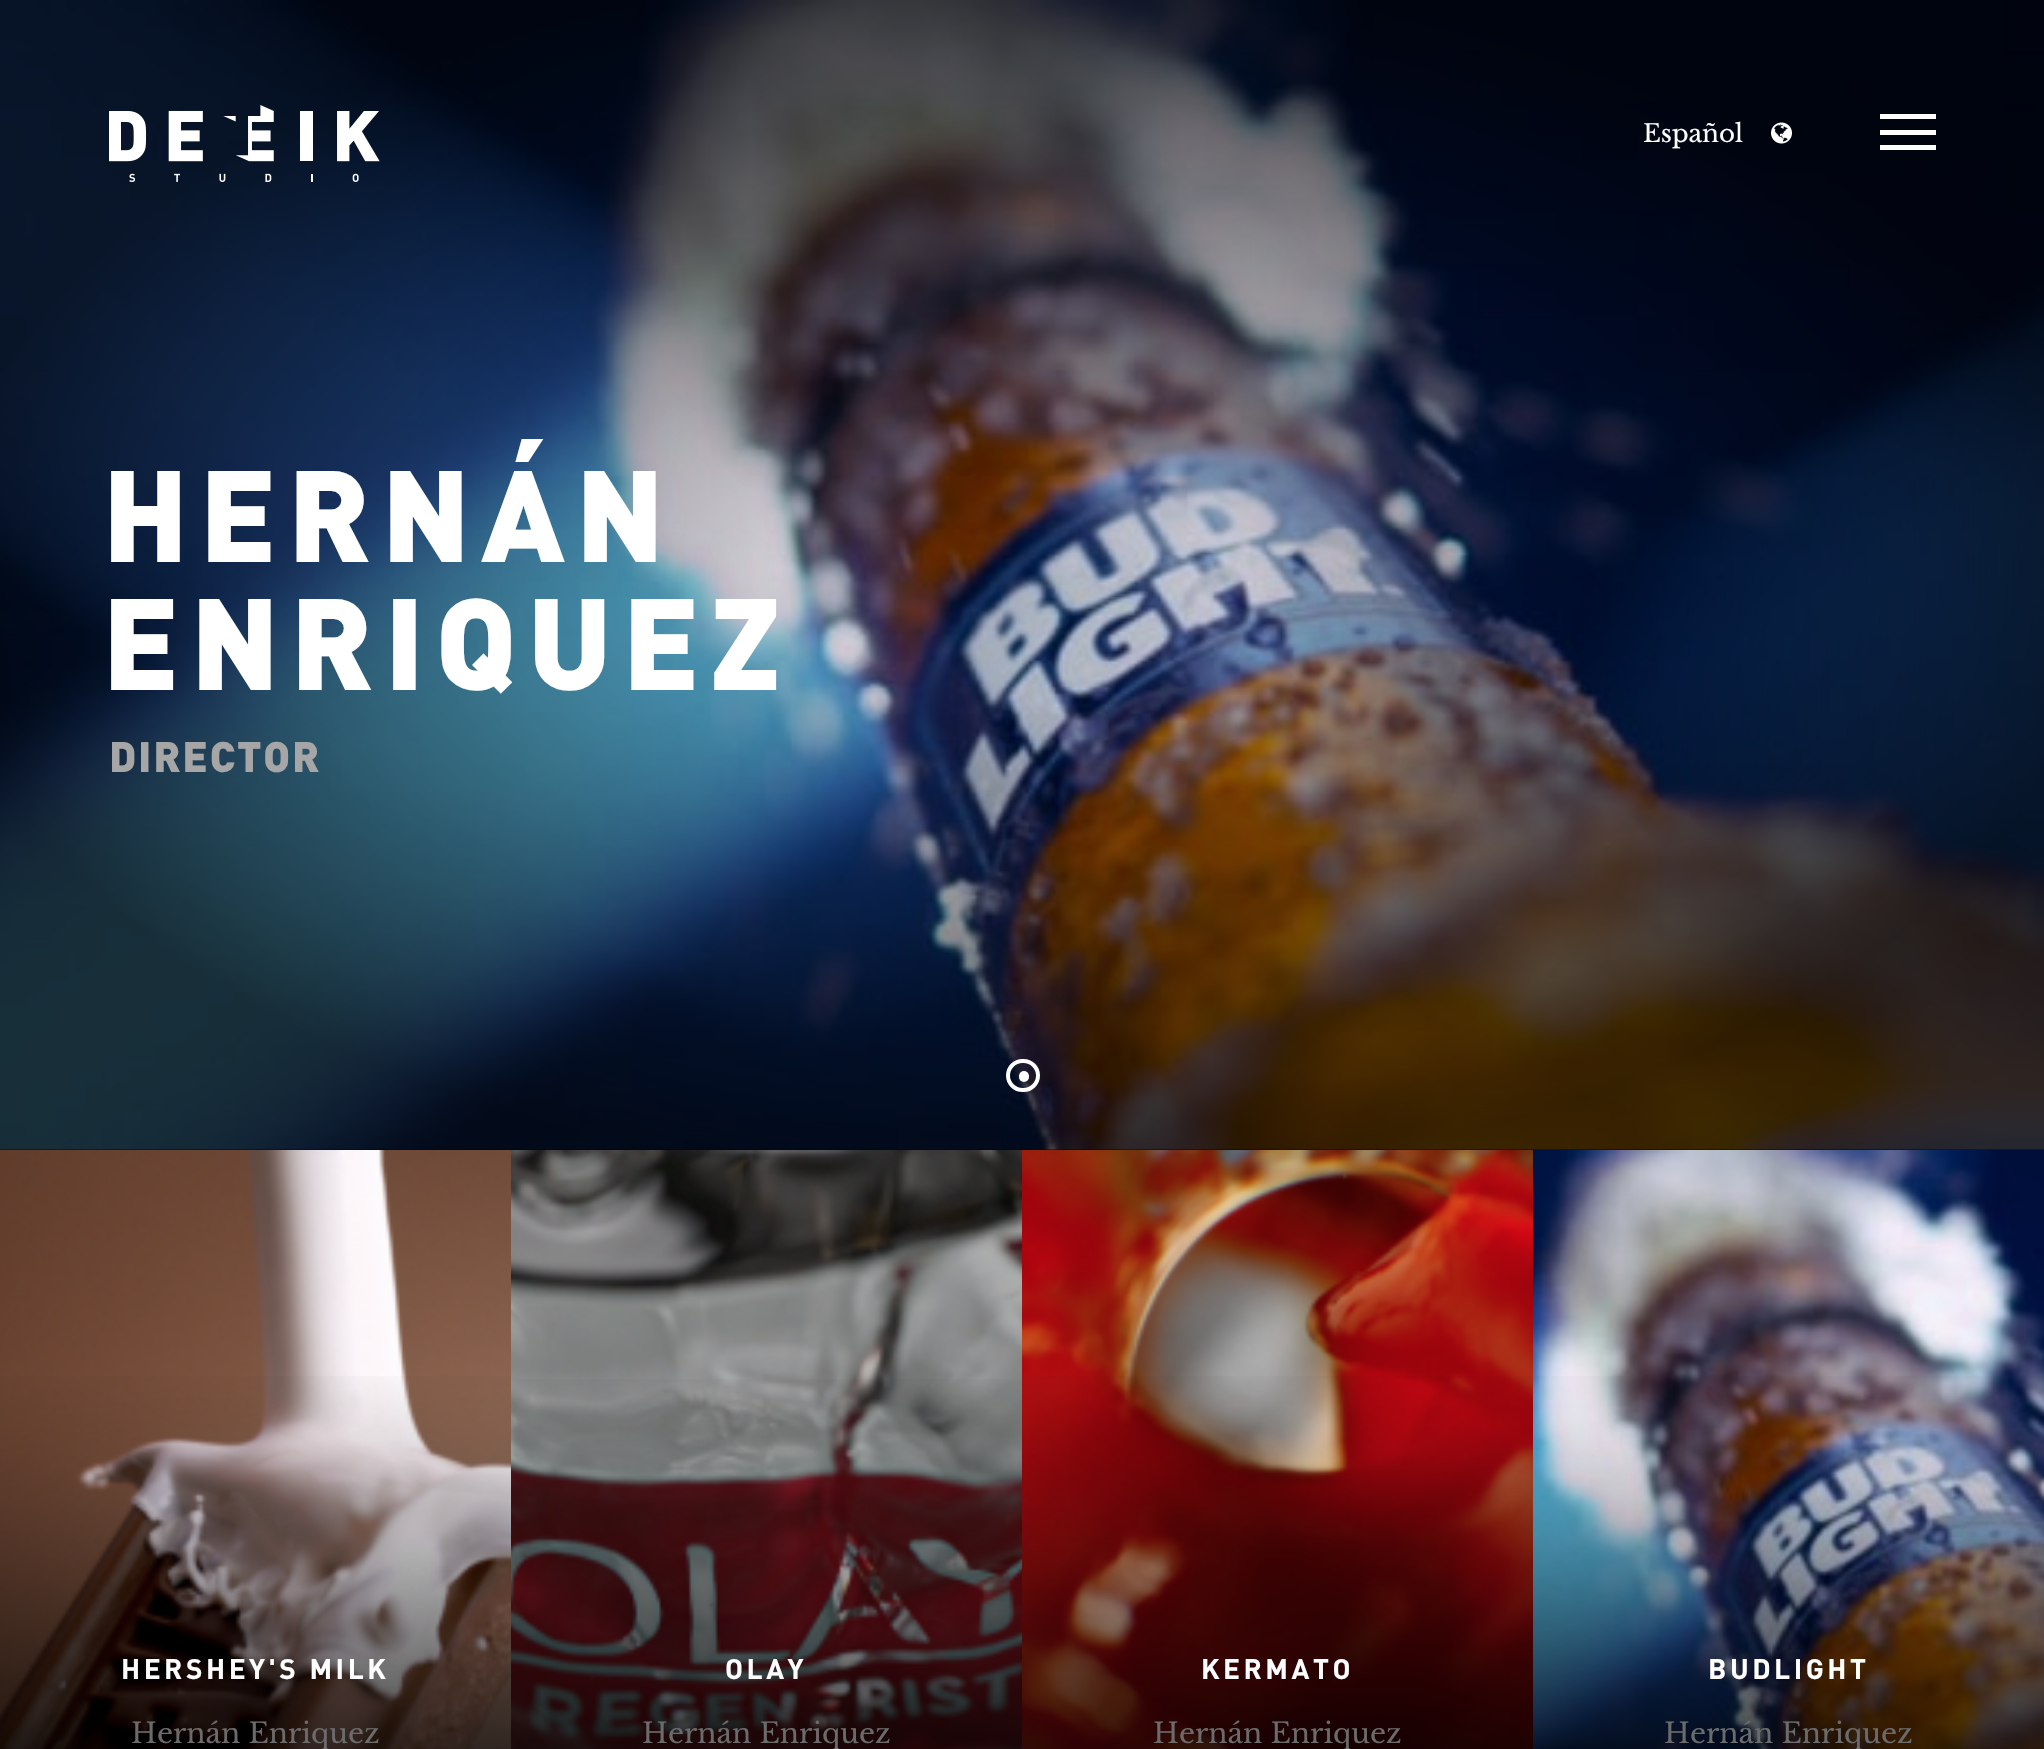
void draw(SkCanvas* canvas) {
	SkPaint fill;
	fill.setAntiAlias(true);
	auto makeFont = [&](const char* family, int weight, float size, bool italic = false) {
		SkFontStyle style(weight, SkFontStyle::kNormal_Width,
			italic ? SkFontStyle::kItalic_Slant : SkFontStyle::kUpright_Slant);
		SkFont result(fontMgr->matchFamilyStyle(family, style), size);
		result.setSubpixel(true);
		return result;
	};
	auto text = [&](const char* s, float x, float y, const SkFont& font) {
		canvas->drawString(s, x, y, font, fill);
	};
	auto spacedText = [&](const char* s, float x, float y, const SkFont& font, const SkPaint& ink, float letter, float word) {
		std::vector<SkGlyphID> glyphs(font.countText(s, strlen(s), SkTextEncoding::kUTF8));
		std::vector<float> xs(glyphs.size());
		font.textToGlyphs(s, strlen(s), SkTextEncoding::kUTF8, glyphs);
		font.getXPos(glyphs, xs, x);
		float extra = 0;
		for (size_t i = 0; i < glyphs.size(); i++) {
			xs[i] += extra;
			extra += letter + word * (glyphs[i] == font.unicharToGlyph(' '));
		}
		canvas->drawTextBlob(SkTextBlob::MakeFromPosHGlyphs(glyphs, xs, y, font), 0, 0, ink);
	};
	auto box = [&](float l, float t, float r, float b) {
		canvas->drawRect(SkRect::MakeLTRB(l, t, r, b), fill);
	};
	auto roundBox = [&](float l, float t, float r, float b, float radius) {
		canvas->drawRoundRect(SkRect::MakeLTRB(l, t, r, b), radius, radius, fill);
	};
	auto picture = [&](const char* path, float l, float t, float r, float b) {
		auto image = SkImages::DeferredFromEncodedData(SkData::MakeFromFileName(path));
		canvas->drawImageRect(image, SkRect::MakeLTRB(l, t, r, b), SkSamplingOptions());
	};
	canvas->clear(0xFF0A0A0A);
	picture("image2.png", 0, 0, 2044, 1150);
	{
		const SkColor colors[] = {0x26000000, 0x26000000, 0xBF000000, 0xBF000000};
		const float stops[] = {0, 0.15f, 0.75f, 1};
		SkMatrix m = SkMatrix::Translate(1022, 575).preScale(1445, 813);
		fill.setShader(SkGradientShader::MakeRadial({0, 0}, 1, colors, stops, 4, SkTileMode::kClamp, 0, &m));
		fill.setAlpha(255);
	}
	box(0, 0, 2044, 1150);
	picture("image0.png", 109, 105, 380, 182);
	picture("image1.png", 1771, 122, 1792, 144);
	fill.setShader(nullptr);
	fill.setColor(0xFFFFFFFF);
	box(1880, 114, 1936, 119);
	box(1880, 130, 1936, 135);
	box(1880, 145, 1936, 150);
	fill.setStyle(SkPaint::kStroke_Style);
	fill.setStrokeWidth(4);
	canvas->drawRoundRect(SkRect::MakeLTRB(1008, 1061, 1038, 1090), 14.5f, 14.5f, fill);
	fill.setStyle(SkPaint::kFill_Style);
	roundBox(1019, 1071, 1029, 1082, 5);
	picture("image3.png", 0, 1150, 511, 1749);
	picture("image4.png", 0, 1376, 511, 1749);
	picture("image5.png", 511, 1150, 1022, 1749);
	picture("image6.png", 511, 1379, 1022, 1749);
	picture("image7.png", 1022, 1150, 1533, 1749);
	picture("image8.png", 1022, 1376, 1533, 1749);
	picture("image9.png", 1533, 1150, 2044, 1749);
	picture("image10.png", 1533, 1376, 2044, 1749);
	auto font1 = makeFont("Libre Baskerville", 400, 24.5f);
	text("Español", 1643, 142, font1);
	auto font2 = makeFont("DIN", 900, 127.75f);
	spacedText("HERNÁN", 102, 562, font2, fill, 10.5f, 0);
	spacedText("ENRIQUEZ", 102, 690, font2, fill, 10.5f, 0);
	auto font3 = makeFont("DIN", 900, 42);
	fill.setColor(0xFFA6A6A6);
	spacedText("DIRECTOR", 109, 772, font3, fill, 1.75f, 0);
	auto font4 = makeFont("DIN", 700, 28);
	fill.setColor(0xFFFFFFFF);
	spacedText("HERSHEY'S MILK", 121, 1679, font4, fill, 3.5f, 0);
	auto font5 = makeFont("Libre Baskerville", 400, 28);
	fill.setColor(0xFF6B6B6B);
	text("Hernán Enriquez", 131, 1743, font5);
	fill.setColor(0xFFFFFFFF);
	spacedText("OLAY", 725, 1679, font4, fill, 3.5f, 0);
	fill.setColor(0xFF6B6B6B);
	text("Hernán Enriquez", 642, 1743, font5);
	fill.setColor(0xFFFFFFFF);
	spacedText("KERMATO", 1201, 1679, font4, fill, 3.5f, 0);
	fill.setColor(0xFF6B6B6B);
	text("Hernán Enriquez", 1153, 1743, font5);
	fill.setColor(0xFFFFFFFF);
	spacedText("BUDLIGHT", 1708, 1679, font4, fill, 3.5f, 0);
	fill.setColor(0xFF6B6B6B);
	text("Hernán Enriquez", 1664, 1743, font5);
}
